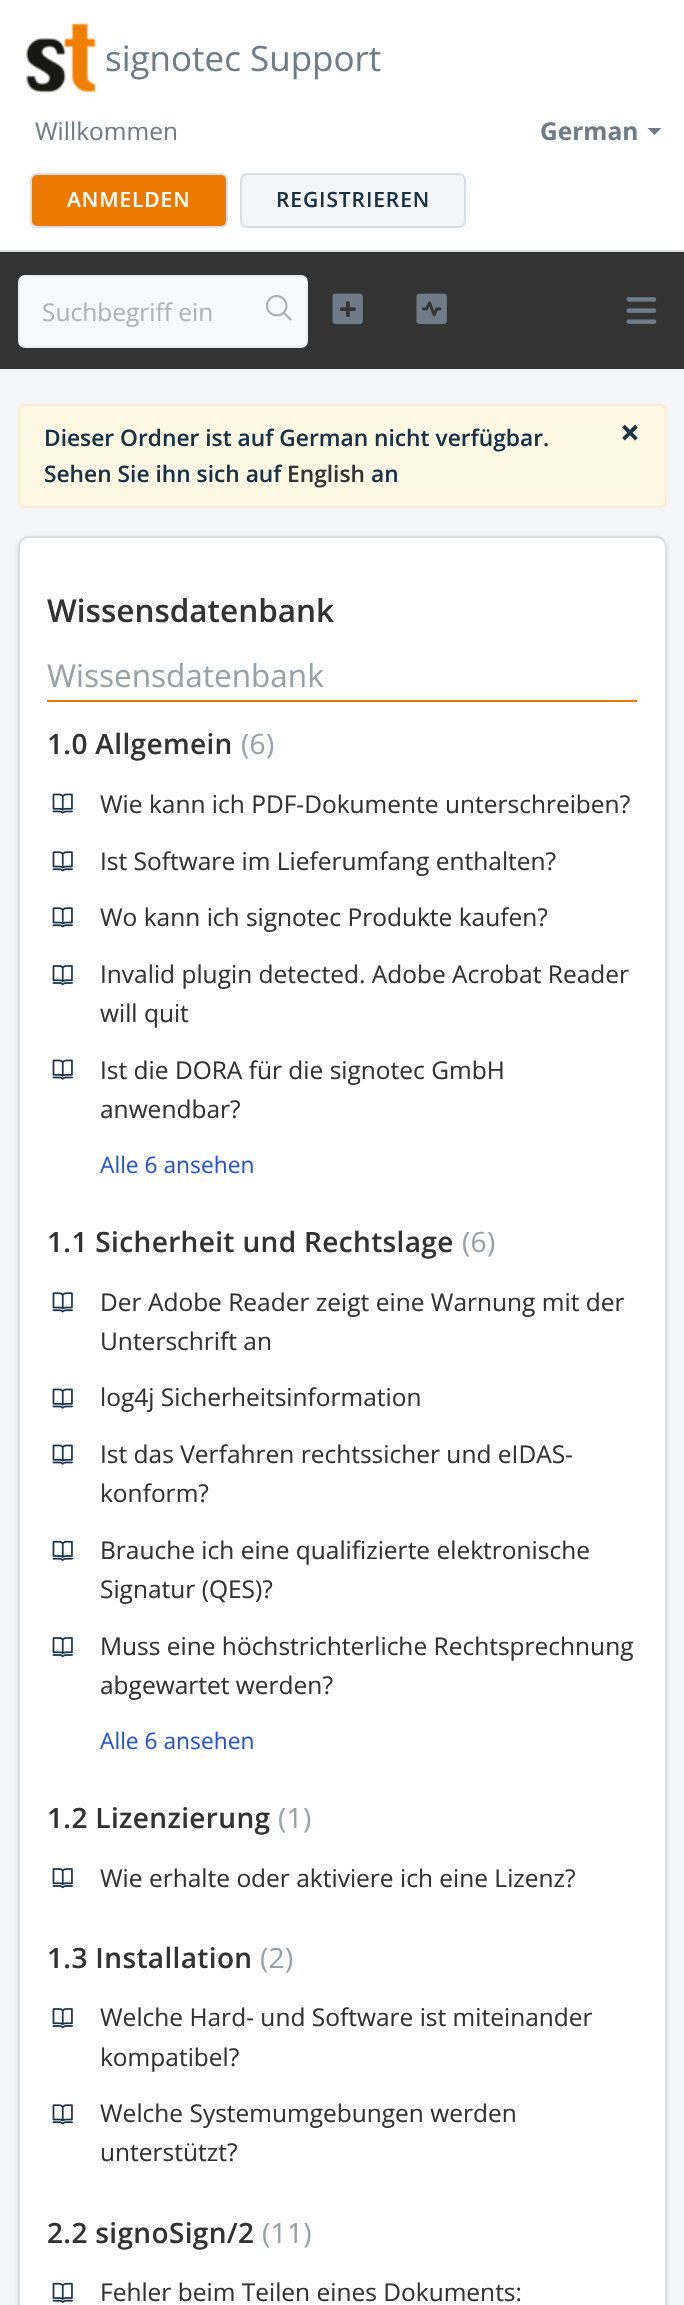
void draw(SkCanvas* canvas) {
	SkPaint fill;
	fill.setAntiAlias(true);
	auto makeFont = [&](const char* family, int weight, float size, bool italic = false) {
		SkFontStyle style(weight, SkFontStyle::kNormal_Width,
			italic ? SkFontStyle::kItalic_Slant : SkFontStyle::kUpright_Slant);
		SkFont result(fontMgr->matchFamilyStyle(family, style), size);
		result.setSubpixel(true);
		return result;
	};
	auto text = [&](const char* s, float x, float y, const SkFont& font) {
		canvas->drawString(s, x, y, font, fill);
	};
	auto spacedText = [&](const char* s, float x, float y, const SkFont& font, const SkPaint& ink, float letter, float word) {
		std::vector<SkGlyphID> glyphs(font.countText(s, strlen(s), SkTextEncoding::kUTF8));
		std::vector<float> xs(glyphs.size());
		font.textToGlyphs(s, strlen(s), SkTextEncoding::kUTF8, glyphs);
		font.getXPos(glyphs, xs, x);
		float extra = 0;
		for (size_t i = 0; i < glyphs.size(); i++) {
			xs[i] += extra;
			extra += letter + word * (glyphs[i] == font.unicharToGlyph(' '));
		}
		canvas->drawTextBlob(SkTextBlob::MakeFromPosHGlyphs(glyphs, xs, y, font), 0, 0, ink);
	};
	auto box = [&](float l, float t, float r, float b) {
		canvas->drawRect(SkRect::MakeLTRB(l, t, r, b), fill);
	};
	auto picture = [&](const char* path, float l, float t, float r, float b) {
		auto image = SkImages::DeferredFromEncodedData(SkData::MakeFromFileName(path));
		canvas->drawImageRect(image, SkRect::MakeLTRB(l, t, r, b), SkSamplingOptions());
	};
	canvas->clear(0xFFF3F5F7);
	fill.setColor(0xFFFFFFFF);
	box(0, 0, 684, 250);
	fill.setColor(0xFFDADFE3);
	box(0, 250, 684, 252);
	picture("image0.png", 26, 22, 97, 93);
	fill.setColor(0xFF6F7C87);
	canvas->drawPath(SkPathBuilder().moveTo(647.5f, 128).lineTo(661.5f, 128).lineTo(654.5f, 135).close().detach(), fill);
	fill.setColor(0xFFEE7900);
	canvas->drawRoundRect(SkRect::MakeLTRB(31, 174, 227, 227), 6, 6, fill);
	fill.setStyle(SkPaint::kStroke_Style);
	fill.setStrokeWidth(2);
	fill.setColor(0xFFDADFE3);
	canvas->drawRoundRect(SkRect::MakeLTRB(31, 174, 227, 227), 6, 6, fill);
	fill.setStyle(SkPaint::kFill_Style);
	fill.setColor(0xFFF3F5F7);
	canvas->drawRoundRect(SkRect::MakeLTRB(241, 174, 465, 227), 6, 6, fill);
	fill.setStyle(SkPaint::kStroke_Style);
	fill.setColor(0xFFDADFE3);
	canvas->drawRoundRect(SkRect::MakeLTRB(241, 174, 465, 227), 6, 6, fill);
	fill.setStyle(SkPaint::kFill_Style);
	fill.setColor(0xFF333333);
	box(0, 252, 684, 369);
	picture("image1.png", 626, 297, 657, 324);
	fill.setColor(0xFFF8F9FA);
	canvas->drawRoundRect(SkRect::MakeLTRB(19, 276, 307, 347), 6, 6, fill);
	fill.setStyle(SkPaint::kStroke_Style);
	fill.setColor(0xFFEBEEF0);
	canvas->drawRoundRect(SkRect::MakeLTRB(19, 276, 307, 347), 6, 6, fill);
	picture("image2.png", 266, 295, 292, 321);
	picture("image3.png", 332, 293, 363, 325);
	picture("image4.png", 416, 293, 447, 325);
	fill.setStyle(SkPaint::kFill_Style);
	fill.setColor(0xFFFCF8E3);
	canvas->drawRoundRect(SkRect::MakeLTRB(19, 405, 666, 507), 6, 6, fill);
	fill.setStyle(SkPaint::kStroke_Style);
	fill.setColor(0xFFFBEED5);
	canvas->drawRoundRect(SkRect::MakeLTRB(19, 405, 666, 507), 6, 6, fill);
	fill.setStyle(SkPaint::kFill_Style);
	fill.setColor(0xFFF8F9FA);
	box(18, 536, 667, 547);
	fill.setColor(0x263F3F44);
	fill.setMaskFilter(SkMaskFilter::MakeBlur(kNormal_SkBlurStyle, 2));
	canvas->drawRoundRect(SkRect::MakeLTRB(18, 537, 667, 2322), 11, 11, fill);
	fill.setMaskFilter(nullptr);
	fill.setColor(0xFFFFFFFF);
	canvas->drawRoundRect(SkRect::MakeLTRB(19, 537, 666, 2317), 10, 10, fill);
	fill.setStyle(SkPaint::kStroke_Style);
	fill.setColor(0xFFDADFE3);
	canvas->drawRoundRect(SkRect::MakeLTRB(19, 537, 666, 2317), 10, 10, fill);
	fill.setStyle(SkPaint::kFill_Style);
	fill.setColor(0xFFEE7900);
	box(47, 700, 637, 702);
	picture("image5.png", 52, 793, 73, 814);
	picture("image6.png", 52, 851, 73, 872);
	picture("image6.png", 52, 907, 73, 928);
	picture("image7.png", 52, 965, 73, 986);
	picture("image5.png", 52, 1059, 73, 1080);
	picture("image6.png", 52, 1292, 73, 1313);
	picture("image5.png", 52, 1388, 73, 1409);
	picture("image5.png", 52, 1444, 73, 1465);
	picture("image8.png", 52, 1540, 73, 1561);
	picture("image7.png", 52, 1637, 73, 1658);
	picture("image7.png", 52, 1868, 73, 1889);
	picture("image7.png", 52, 2008, 73, 2029);
	picture("image6.png", 52, 2104, 73, 2125);
	picture("image8.png", 52, 2282, 73, 2303);
	auto font1 = makeFont("Open Sans", 400, 35);
	fill.setColor(0xFF6F7C87);
	text("signotec Support", 105, 71, font1);
	auto font2 = makeFont("Open Sans", 400, 24.5f);
	text("Willkommen", 35, 140, font2);
	auto font3 = makeFont("Open Sans", 700, 24.5f);
	text("German", 540, 140, font3);
	auto font4 = makeFont("Open Sans", 600, 21);
	fill.setColor(0xFFFFFFFF);
	spacedText("ANMELDEN", 67, 207, font4, fill, 0.9f, 0);
	fill.setColor(0xFF183247);
	spacedText("REGISTRIEREN", 276, 207, font4, fill, 0.9f, 0);
	fill.setColor(0xFFB2B2B2);
	text("Suchbegriff ein", 42, 321, font2);
	auto font5 = makeFont("Open Sans", 600, 22.75f);
	fill.setColor(0xFF183247);
	text("Dieser Ordner ist auf German nicht verfügbar.", 44, 446, font5);
	auto font6 = makeFont("Open Sans", 700, 35);
	text("×", 620, 445, font6);
	text("Sehen Sie ihn sich auf", 44, 482, font5);
	fill.setColor(0xFF333333);
	text("English", 287, 482, font5);
	fill.setColor(0xFF183247);
	text("an", 371, 482, font5);
	auto font7 = makeFont("Open Sans", 600, 31.5f);
	fill.setColor(0xFF333333);
	text("Wissensdatenbank", 47, 622, font7);
	auto font8 = makeFont("Open Sans", 400, 31.5f);
	fill.setColor(0xFF9AA1A6);
	text("Wissensdatenbank", 47, 687, font8);
	auto font9 = makeFont("Open Sans", 600, 28);
	fill.setColor(0xFF333333);
	spacedText("1.0 Allgemein", 47, 754, font9, fill, 0.35f, 0);
	auto font10 = makeFont("Open Sans", 400, 28);
	fill.setColor(0xFF9AA1A6);
	spacedText("(6)", 241, 754, font10, fill, 0.35f, 0);
	fill.setColor(0xFF333333);
	text("Wie kann ich PDF-Dokumente unterschreiben?", 100, 813, font2);
	text("Ist Software im Lieferumfang enthalten?", 100, 870, font2);
	text("Wo kann ich signotec Produkte kaufen?", 100, 926, font2);
	text("Invalid plugin detected. Adobe Acrobat Reader", 100, 983, font2);
	text("will quit", 100, 1022, font2);
	text("Ist die DORA für die signotec GmbH", 100, 1079, font2);
	text("anwendbar?", 100, 1118, font2);
	auto font11 = makeFont("Open Sans", 400, 22.75f);
	fill.setColor(0xFF2753D7);
	text("Alle 6 ansehen", 100, 1173, font11);
	fill.setColor(0xFF333333);
	spacedText("1.1 Sicherheit und Rechtslage", 47, 1252, font9, fill, 0.35f, 0);
	fill.setColor(0xFF9AA1A6);
	spacedText("(6)", 462, 1252, font10, fill, 0.35f, 0);
	fill.setColor(0xFF333333);
	text("Der Adobe Reader zeigt eine Warnung mit der", 100, 1311, font2);
	text("Unterschrift an", 100, 1350, font2);
	text("log4j Sicherheitsinformation", 100, 1406, font2);
	text("Ist das Verfahren rechtssicher und eIDAS-", 100, 1463, font2);
	text("konform?", 100, 1502, font2);
	text("Brauche ich eine qualifizierte elektronische", 100, 1559, font2);
	text("Signatur (QES)?", 100, 1598, font2);
	text("Muss eine höchstrichterliche Rechtsprechnung", 100, 1655, font2);
	text("abgewartet werden?", 100, 1694, font2);
	fill.setColor(0xFF2753D7);
	text("Alle 6 ansehen", 100, 1749, font11);
	fill.setColor(0xFF333333);
	spacedText("1.2 Lizenzierung", 47, 1828, font9, fill, 0.35f, 0);
	fill.setColor(0xFF9AA1A6);
	spacedText("(1)", 278, 1828, font10, fill, 0.35f, 0);
	fill.setColor(0xFF333333);
	text("Wie erhalte oder aktiviere ich eine Lizenz?", 100, 1887, font2);
	spacedText("1.3 Installation", 47, 1968, font9, fill, 0.35f, 0);
	fill.setColor(0xFF9AA1A6);
	spacedText("(2)", 260, 1968, font10, fill, 0.35f, 0);
	fill.setColor(0xFF333333);
	text("Welche Hard- und Software ist miteinander", 100, 2026, font2);
	text("kompatibel?", 100, 2066, font2);
	text("Welche Systemumgebungen werden", 100, 2122, font2);
	text("unterstützt?", 100, 2161, font2);
	spacedText("2.2 signoSign/2", 47, 2243, font9, fill, 0.35f, 0);
	fill.setColor(0xFF9AA1A6);
	spacedText("(11)", 262, 2243, font10, fill, 0.35f, 0);
	fill.setColor(0xFF333333);
	text("Fehler beim Teilen eines Dokuments:", 100, 2301, font2);
}
